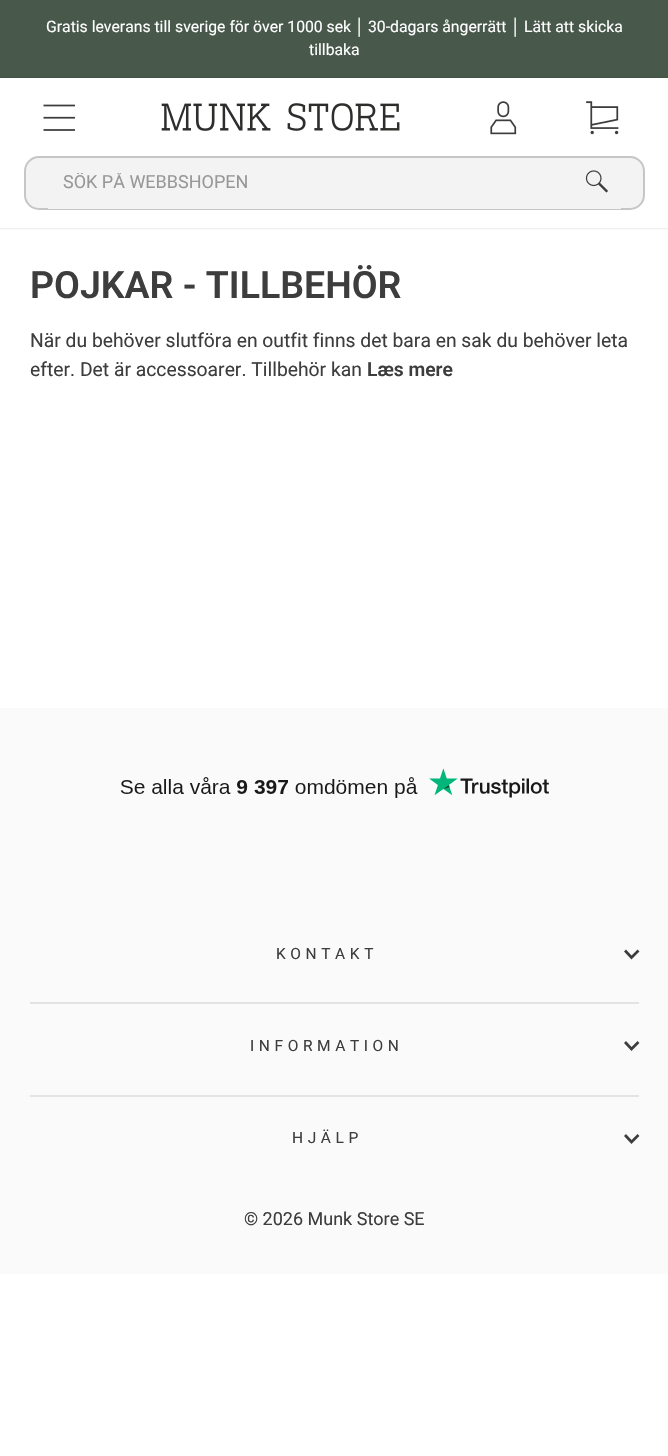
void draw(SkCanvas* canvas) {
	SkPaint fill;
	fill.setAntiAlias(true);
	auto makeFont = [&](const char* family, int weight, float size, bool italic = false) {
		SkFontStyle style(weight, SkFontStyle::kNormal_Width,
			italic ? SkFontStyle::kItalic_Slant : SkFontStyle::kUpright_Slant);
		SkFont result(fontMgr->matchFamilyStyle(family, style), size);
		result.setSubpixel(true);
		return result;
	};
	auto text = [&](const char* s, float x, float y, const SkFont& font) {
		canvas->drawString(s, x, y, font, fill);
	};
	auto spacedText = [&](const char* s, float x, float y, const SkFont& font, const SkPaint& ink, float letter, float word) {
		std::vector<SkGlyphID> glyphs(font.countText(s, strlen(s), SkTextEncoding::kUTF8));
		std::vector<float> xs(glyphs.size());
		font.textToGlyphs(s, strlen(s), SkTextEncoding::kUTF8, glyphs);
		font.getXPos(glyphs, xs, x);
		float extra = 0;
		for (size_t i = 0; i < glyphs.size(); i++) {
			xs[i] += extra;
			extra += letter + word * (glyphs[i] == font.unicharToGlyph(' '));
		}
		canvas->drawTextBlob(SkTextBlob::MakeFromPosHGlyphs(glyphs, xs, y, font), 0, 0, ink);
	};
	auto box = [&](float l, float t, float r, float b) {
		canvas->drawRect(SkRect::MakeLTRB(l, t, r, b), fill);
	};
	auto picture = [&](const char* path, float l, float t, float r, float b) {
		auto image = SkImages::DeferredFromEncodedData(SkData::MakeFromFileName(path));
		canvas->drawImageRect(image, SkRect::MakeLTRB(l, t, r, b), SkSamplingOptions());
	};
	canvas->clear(0xFFFFFFFF);
	fill.setColor(0xFF48594C);
	box(0, 0, 668, 78);
	canvas->save();
	canvas->clipPath(SkPathBuilder(SkPathFillType::kEvenOdd).moveTo(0, 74).lineTo(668, 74).lineTo(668, 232).lineTo(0, 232).close().moveTo(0, 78).lineTo(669, 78).lineTo(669, 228).lineTo(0, 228).close().detach(), true);
	fill.setColor(0x33000000);
	fill.setMaskFilter(SkMaskFilter::MakeBlur(kNormal_SkBlurStyle, 1));
	canvas->drawRect(SkRect::MakeLTRB(0, 78, 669, 228), fill);
	fill.setMaskFilter(nullptr);
	canvas->restore();
	picture("image0.png", 43, 104, 75, 131);
	picture("image1.png", 161, 103, 400, 131);
	picture("image2.png", 490, 101, 517, 135);
	picture("image3.png", 586, 101, 619, 135);
	fill.setColor(0xFFF3F3F3);
	canvas->drawRoundRect(SkRect::MakeLTRB(25, 157, 644, 209), 14, 14, fill);
	fill.setStyle(SkPaint::kStroke_Style);
	fill.setStrokeWidth(2);
	fill.setColor(0xFFC6C6C6);
	canvas->drawRoundRect(SkRect::MakeLTRB(25, 157, 644, 209), 14, 14, fill);
	fill.setStyle(SkPaint::kFill_Style);
	fill.setColor(0xFFF3F3F3);
	box(48, 208, 621, 209);
	picture("image4.png", 585, 170, 608, 193);
	fill.setColor(0xFFFAFAFA);
	box(0, 708, 668, 1274);
	picture("image5.png", 120, 768, 549, 798);
	fill.setStyle(SkPaint::kStroke_Style);
	fill.setStrokeWidth(2.7f);
	fill.setColor(0xFF3D3D3D);
	canvas->drawPath(SkPathBuilder().moveTo(625, 950.5f).lineTo(631.5f, 957.5f).lineTo(638.5f, 950.5f).detach(), fill);
	fill.setStyle(SkPaint::kFill_Style);
	fill.setColor(0xFFE3E3E3);
	box(30, 1002, 639, 1004);
	fill.setStyle(SkPaint::kStroke_Style);
	fill.setColor(0xFF3D3D3D);
	canvas->drawPath(SkPathBuilder().moveTo(625, 1042).lineTo(631.5f, 1049).lineTo(638.5f, 1042).detach(), fill);
	fill.setStyle(SkPaint::kFill_Style);
	fill.setColor(0xFFE3E3E3);
	box(30, 1095, 639, 1097);
	fill.setStyle(SkPaint::kStroke_Style);
	fill.setColor(0xFF3D3D3D);
	canvas->drawPath(SkPathBuilder().moveTo(625, 1135).lineTo(631.5f, 1142).lineTo(638.5f, 1135).detach(), fill);
	auto font1 = makeFont("Roboto", 400, 15.75f);
	fill.setStyle(SkPaint::kFill_Style);
	fill.setColor(0xFFFFFFFF);
	text("Gratis leverans till sverige för över 1000 sek", 46, 32, font1);
	auto font2 = makeFont("Liberation Sans", 400, 15.75f);
	text("│", 355, 32, font2);
	text("30-dagars ångerrätt", 368, 32, font1);
	text("│", 511, 32, font2);
	text("Lätt att skicka", 524, 32, font1);
	text("tillbaka", 309, 55, font1);
	canvas->save();
	canvas->clipRect(SkRect::MakeLTRB(63, 173, 600, 194));
	auto font3 = makeFont("Roboto", 400, 18);
	fill.setColor(0xFF989898);
	text("SÖK PÅ WEBBSHOPEN", 63, 188, font3);
	canvas->restore();
	auto font4 = makeFont("Roboto", 600, 37.5f);
	fill.setColor(0xFF3D3D3D);
	text("POJKAR - TILLBEHÖR", 30, 298, font4);
	auto font5 = makeFont("Roboto", 400, 19.3f);
	text("När du behöver slutföra en outfit finns det bara en sak du behöver leta", 30, 347, font5);
	text("efter. Det är accessoarer. Tillbehör kan", 30, 376, font5);
	auto font6 = makeFont("Roboto", 600, 19.3f);
	text("Læs mere", 367, 376, font6);
	auto font7 = makeFont("Roboto", 400, 15.5f);
	spacedText("KONTAKT", 276, 959, font7, fill, 4.6f, 0);
	spacedText("INFORMATION", 250, 1051, font7, fill, 4.6f, 0);
	spacedText("HJÄLP", 292, 1143, font7, fill, 4.6f, 0);
	text("© 2026 Munk Store SE", 244, 1225, font3);
}
